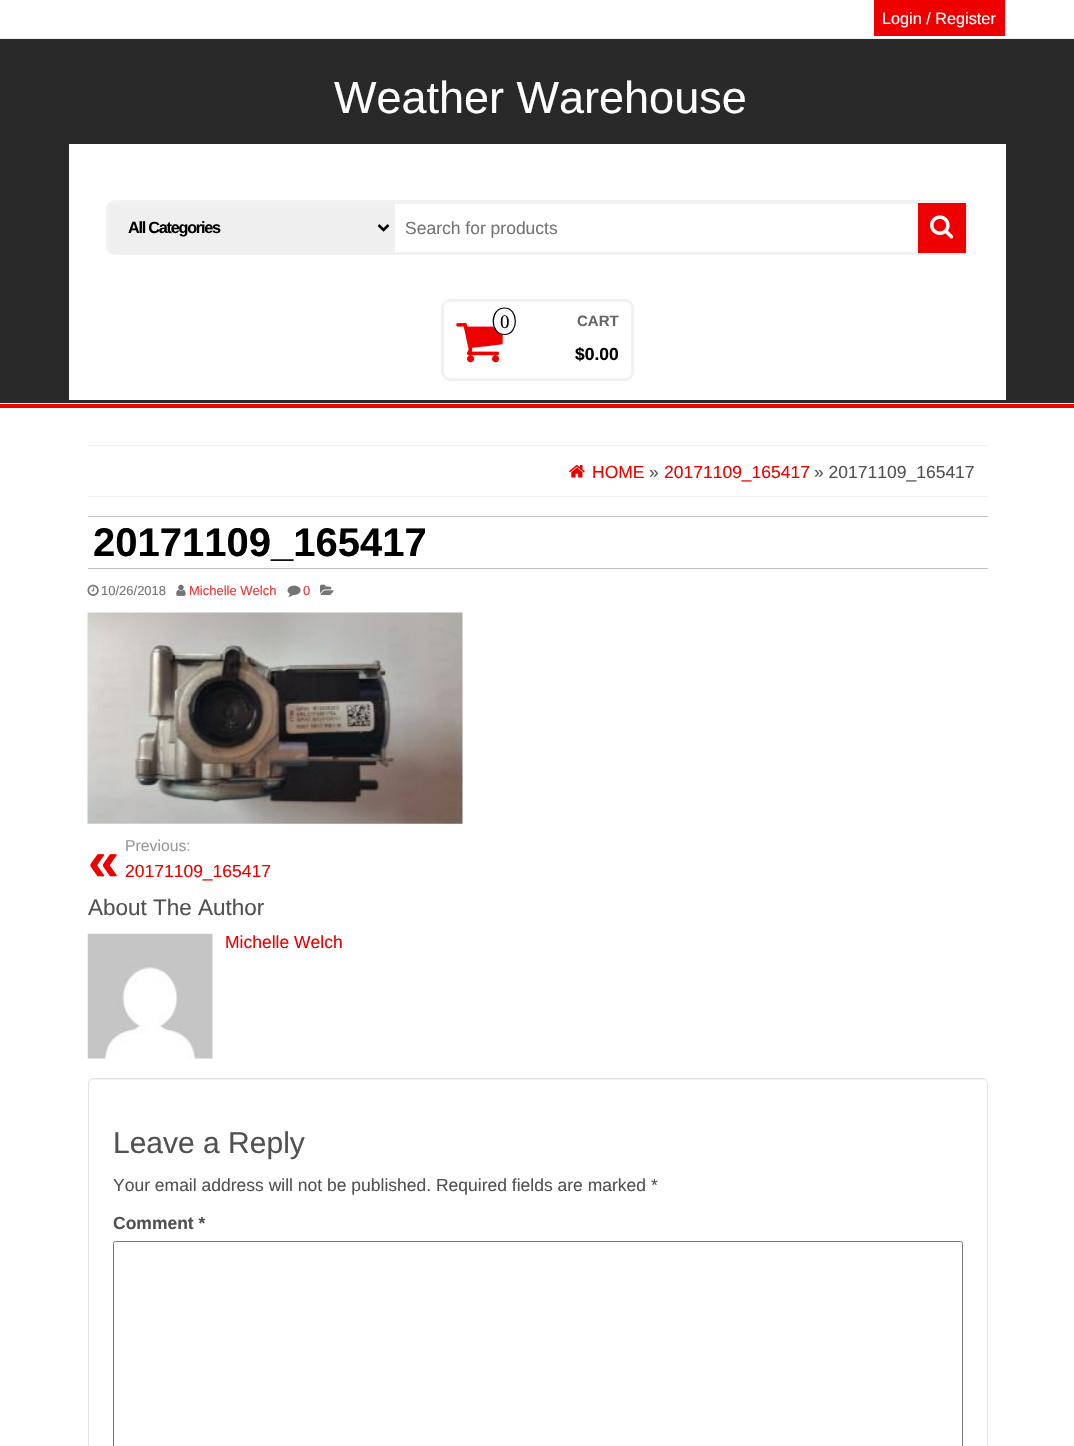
void draw(SkCanvas* canvas) {
	SkPaint fill;
	fill.setAntiAlias(true);
	auto makeFont = [&](const char* family, int weight, float size, bool italic = false) {
		SkFontStyle style(weight, SkFontStyle::kNormal_Width,
			italic ? SkFontStyle::kItalic_Slant : SkFontStyle::kUpright_Slant);
		SkFont result(fontMgr->matchFamilyStyle(family, style), size);
		result.setSubpixel(true);
		return result;
	};
	auto text = [&](const char* s, float x, float y, const SkFont& font) {
		canvas->drawString(s, x, y, font, fill);
	};
	auto spacedText = [&](const char* s, float x, float y, const SkFont& font, const SkPaint& ink, float letter, float word) {
		std::vector<SkGlyphID> glyphs(font.countText(s, strlen(s), SkTextEncoding::kUTF8));
		std::vector<float> xs(glyphs.size());
		font.textToGlyphs(s, strlen(s), SkTextEncoding::kUTF8, glyphs);
		font.getXPos(glyphs, xs, x);
		float extra = 0;
		for (size_t i = 0; i < glyphs.size(); i++) {
			xs[i] += extra;
			extra += letter + word * (glyphs[i] == font.unicharToGlyph(' '));
		}
		canvas->drawTextBlob(SkTextBlob::MakeFromPosHGlyphs(glyphs, xs, y, font), 0, 0, ink);
	};
	auto box = [&](float l, float t, float r, float b) {
		canvas->drawRect(SkRect::MakeLTRB(l, t, r, b), fill);
	};
	auto picture = [&](const char* path, float l, float t, float r, float b) {
		auto image = SkImages::DeferredFromEncodedData(SkData::MakeFromFileName(path));
		canvas->drawImageRect(image, SkRect::MakeLTRB(l, t, r, b), SkSamplingOptions());
	};
	canvas->clear(0xFFFFFFFF);
	fill.setColor(0xFFEF0000);
	box(0, 404, 1074, 408);
	fill.setColor(0xFFF1F1F1);
	box(0, 38, 1074, 39);
	fill.setColor(0xFFEF0000);
	box(874, 0, 1005, 36);
	fill.setColor(0xFFF1F1F1);
	box(1005, 0, 1006, 36);
	fill.setColor(0xFF292929);
	box(0, 39, 1074, 403);
	fill.setColor(0xFFF1F1F1);
	box(0, 403, 1074, 404);
	fill.setColor(0xFFFFFFFF);
	box(69, 144, 1006, 400);
	fill.setStyle(SkPaint::kStroke_Style);
	fill.setStrokeWidth(3);
	fill.setColor(0xFFF1F1F1);
	canvas->drawRoundRect(SkRect::MakeLTRB(107.5f, 201.5f, 967.5f, 253.5f), 7.5f, 7.5f, fill);
	fill.setStyle(SkPaint::kFill_Style);
	fill.setColor(0xFFEFEFEF);
	canvas->drawRect(SkRect::MakeLTRB(109.5f, 203.5f, 394.5f, 252.5f), fill);
	fill.setStyle(SkPaint::kStroke_Style);
	fill.setStrokeWidth(1);
	fill.setColor(0xFFF1F1F1);
	canvas->drawRect(SkRect::MakeLTRB(109.5f, 203.5f, 394.5f, 252.5f), fill);
	fill.setStrokeWidth(2.5f);
	fill.setColor(0xFF000000);
	canvas->drawPath(SkPathBuilder().moveTo(378.5f, 225).lineTo(383.5f, 230).lineTo(388.5f, 225).detach(), fill);
	fill.setStrokeWidth(1);
	fill.setColor(0xFFF1F1F1);
	canvas->drawRect(SkRect::MakeLTRB(394.5f, 203.5f, 964.5f, 252.5f), fill);
	fill.setStyle(SkPaint::kFill_Style);
	fill.setColor(0xFFEF0000);
	box(918, 203, 966, 253);
	picture("image0.png", 930, 215, 954, 239);
	fill.setStyle(SkPaint::kStroke_Style);
	fill.setStrokeWidth(3);
	fill.setColor(0xFFF1F1F1);
	canvas->drawRoundRect(SkRect::MakeLTRB(442.5f, 300.5f, 632.5f, 379.5f), 7.5f, 7.5f, fill);
	picture("image1.png", 456, 323, 503, 363);
	fill.setStyle(SkPaint::kFill_Style);
	fill.setColor(0xFFFFFFFF);
	canvas->drawOval(SkRect::MakeLTRB(492.5f, 307, 516.5f, 335), fill);
	fill.setStyle(SkPaint::kStroke_Style);
	fill.setStrokeWidth(1.2f);
	fill.setColor(0xFF000000);
	canvas->drawPath(SkPathBuilder().moveTo(504.5f, 308).cubicTo(519, 308, 519, 334.5f, 504.5f, 334.5f).cubicTo(489.5f, 334.5f, 489.5f, 308, 504.5f, 308).close().detach(), fill);
	fill.setStyle(SkPaint::kFill_Style);
	fill.setColor(0xFFF1F1F1);
	box(88, 445, 988, 446);
	box(88, 496, 988, 497);
	picture("image2.png", 569, 465, 585, 478);
	fill.setColor(0xFFBFBFBF);
	box(88, 516, 988, 517);
	box(88, 568, 988, 569);
	picture("image3.png", 87, 584, 99, 596);
	picture("image4.png", 176, 584, 186, 596);
	picture("image5.png", 287, 585, 301, 597);
	picture("image6.png", 320, 584, 334, 595);
	picture("image7.png", 87, 612, 463, 824);
	picture("image8.png", 87, 933, 213, 1059);
	fill.setColor(0xFFF2F2F2);
	canvas->drawPath(SkPathBuilder().moveTo(92, 1080).lineTo(982, 1080).cubicTo(985, 1080, 986, 1082, 986, 1084).cubicTo(986, 1081, 985, 1079, 982, 1079).lineTo(93, 1079).cubicTo(90, 1079, 89, 1081, 89, 1084).cubicTo(89, 1082, 90, 1080, 92, 1080).close().detach(), fill);
	fill.setStyle(SkPaint::kStroke_Style);
	fill.setStrokeWidth(1);
	fill.setColor(0xFFE3E3E3);
	canvas->drawRoundRect(SkRect::MakeLTRB(88.5f, 1078.5f, 987.5f, 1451.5f), 4.5f, 4.5f, fill);
	fill.setColor(0xFF767676);
	canvas->drawRoundRect(SkRect::MakeLTRB(113.5f, 1241.5f, 962.5f, 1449.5f), 2, 2, fill);
	auto font1 = makeFont("Liberation Sans", 400, 16.25f);
	fill.setStyle(SkPaint::kFill_Style);
	fill.setColor(0xFFFFFFFF);
	text("Login / Register", 882, 24, font1);
	auto font2 = makeFont("Liberation Sans", 400, 45);
	text("Weather Warehouse", 334, 113, font2);
	auto font3 = makeFont("Liberation Sans", 700, 16.25f);
	fill.setColor(0xFF000000);
	spacedText("All Categories", 128, 233, font3, fill, -1.25f, 0);
	auto font4 = makeFont("Liberation Sans", 400, 17.5f);
	fill.setColor(0xFF747474);
	text("Search for products", 405, 234, font4);
	auto font5 = makeFont("Liberation Serif", 400, 19);
	fill.setColor(0xFF000000);
	text("0", 500, 328, font5);
	auto font6 = makeFont("Liberation Sans", 700, 15);
	fill.setColor(0xFF666666);
	text("CART", 577, 326, font6);
	auto font7 = makeFont("Liberation Sans", 700, 17.5f);
	fill.setColor(0xFF000000);
	text("$0.00", 575, 360, font7);
	fill.setColor(0xFFEF0000);
	text("HOME", 592, 478, font4);
	fill.setColor(0xFF515151);
	text("»", 649, 478, font4);
	fill.setColor(0xFFEF0000);
	text("20171109_165417", 664, 478, font4);
	fill.setColor(0xFF515151);
	text("» 20171109_165417", 814, 478, font4);
	auto font8 = makeFont("Liberation Sans", 700, 40);
	fill.setColor(0xFF000000);
	text("20171109_165417", 93, 556, font8);
	auto font9 = makeFont("Liberation Sans", 400, 13);
	fill.setColor(0xFF747474);
	text("10/26/2018", 101, 595, font9);
	fill.setColor(0xFFF23333);
	text("Michelle Welch", 189, 595, font9);
	text("0", 303, 595, font9);
	auto font10 = makeFont("Liberation Sans", 400, 15.75f);
	fill.setColor(0xFF999999);
	text("Previous:", 125, 851, font10);
	auto font11 = makeFont("Liberation Sans", 700, 56);
	fill.setColor(0xFFEF0000);
	text("«", 88, 880, font11);
	text("20171109_165417", 125, 877, font4);
	auto font12 = makeFont("Liberation Sans", 400, 22.5f);
	fill.setColor(0xFF515151);
	text("About The Author", 88, 915, font12);
	fill.setColor(0xFFEF0000);
	text("Michelle Welch", 225, 948, font4);
	auto font13 = makeFont("Liberation Sans", 400, 30);
	fill.setColor(0xFF515151);
	text("Leave a Reply", 113, 1153, font13);
	text("Your email address will not be published. Required fields are marked *", 113, 1191, font4);
	text("Comment *", 113, 1229, font7);
}
